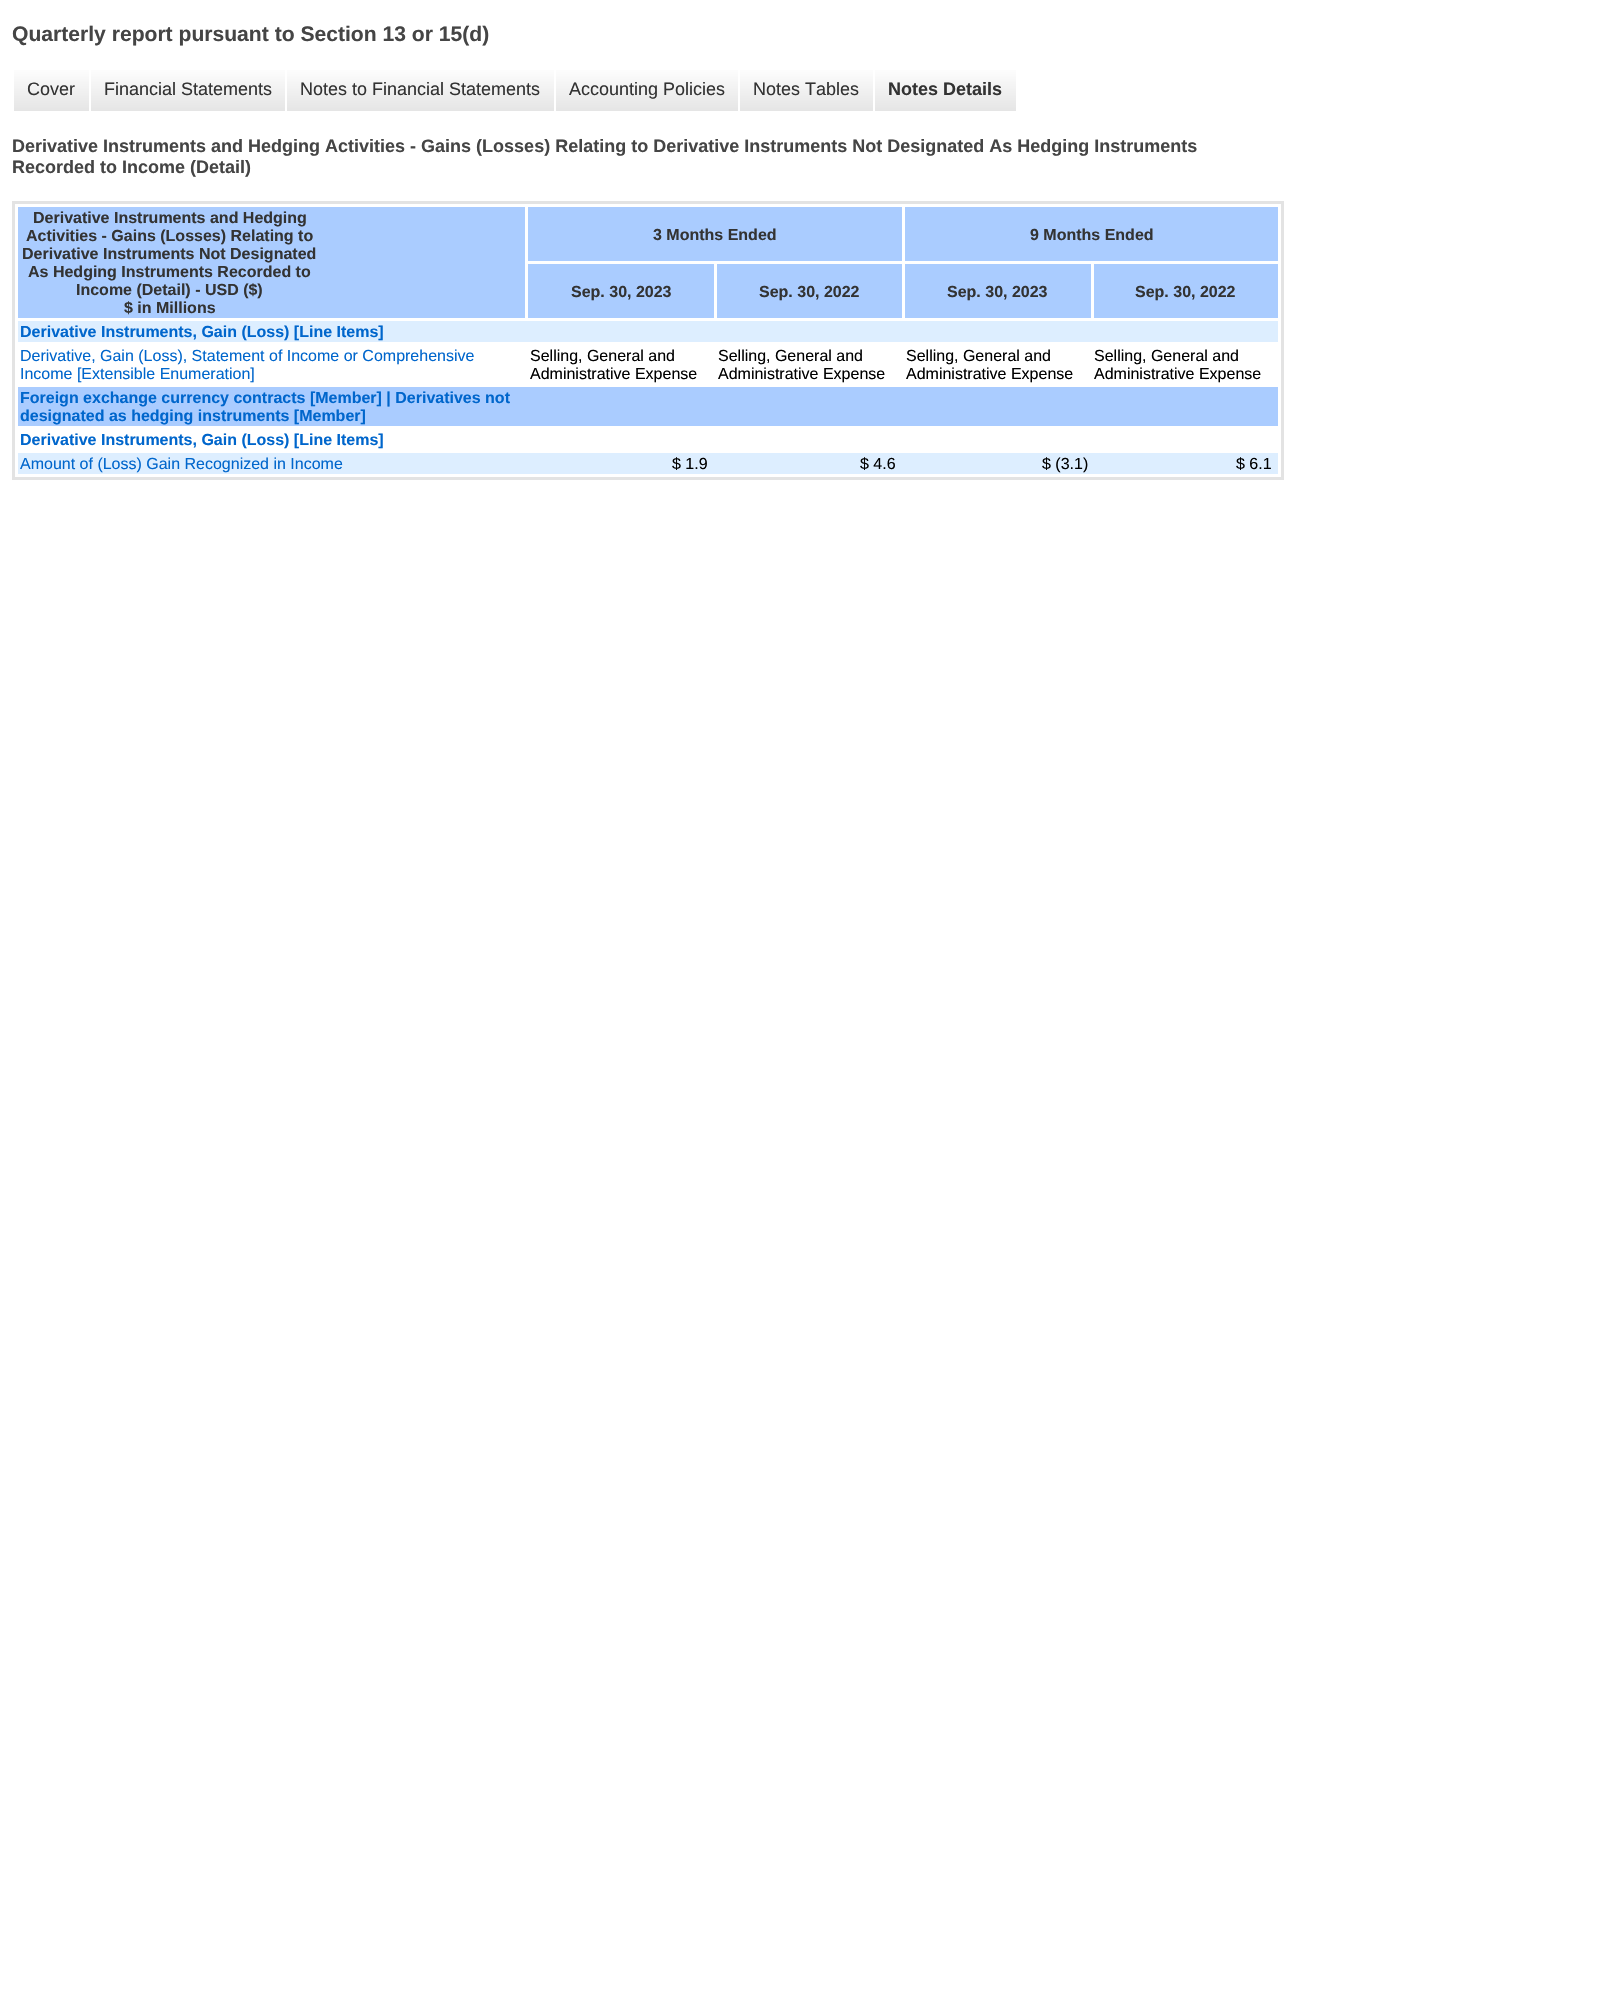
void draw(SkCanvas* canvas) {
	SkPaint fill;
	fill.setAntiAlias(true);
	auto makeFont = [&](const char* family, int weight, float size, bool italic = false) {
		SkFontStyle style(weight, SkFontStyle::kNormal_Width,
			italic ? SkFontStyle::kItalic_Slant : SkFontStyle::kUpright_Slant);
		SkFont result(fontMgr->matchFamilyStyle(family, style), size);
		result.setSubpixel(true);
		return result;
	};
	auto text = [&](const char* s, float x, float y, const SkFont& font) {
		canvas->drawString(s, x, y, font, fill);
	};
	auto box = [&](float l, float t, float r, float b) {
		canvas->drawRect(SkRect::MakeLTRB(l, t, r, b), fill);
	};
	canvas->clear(0xFFFFFFFF);
	{
		const SkColor colors[] = {0xFFFFFFFF, 0xFFE5E5E5};
		const float stops[] = {0, 1};
		const SkPoint ends[] = {{51, 66}, {51, 111}};
		fill.setShader(SkGradientShader::MakeLinear(ends, colors, stops, 2, SkTileMode::kClamp));
		fill.setAlpha(255);
	}
	box(14, 70, 89, 111);
	{
		const SkColor colors[] = {0xFFFFFFFF, 0xFFE5E5E5};
		const float stops[] = {0, 1};
		const SkPoint ends[] = {{188, 66}, {188, 111}};
		fill.setShader(SkGradientShader::MakeLinear(ends, colors, stops, 2, SkTileMode::kClamp));
		fill.setAlpha(255);
	}
	box(91, 70, 285, 111);
	{
		const SkColor colors[] = {0xFFFFFFFF, 0xFFE5E5E5};
		const float stops[] = {0, 1};
		const SkPoint ends[] = {{420, 66}, {420, 111}};
		fill.setShader(SkGradientShader::MakeLinear(ends, colors, stops, 2, SkTileMode::kClamp));
		fill.setAlpha(255);
	}
	box(287, 70, 554, 111);
	{
		const SkColor colors[] = {0xFFFFFFFF, 0xFFE5E5E5};
		const float stops[] = {0, 1};
		const SkPoint ends[] = {{647, 66}, {647, 111}};
		fill.setShader(SkGradientShader::MakeLinear(ends, colors, stops, 2, SkTileMode::kClamp));
		fill.setAlpha(255);
	}
	box(556, 70, 738, 111);
	{
		const SkColor colors[] = {0xFFFFFFFF, 0xFFE5E5E5};
		const float stops[] = {0, 1};
		const SkPoint ends[] = {{806, 66}, {806, 111}};
		fill.setShader(SkGradientShader::MakeLinear(ends, colors, stops, 2, SkTileMode::kClamp));
		fill.setAlpha(255);
	}
	box(740, 70, 873, 111);
	{
		const SkColor colors[] = {0xFFFFFFFF, 0xFFE5E5E5};
		const float stops[] = {0, 1};
		const SkPoint ends[] = {{945, 66}, {945, 111}};
		fill.setShader(SkGradientShader::MakeLinear(ends, colors, stops, 2, SkTileMode::kClamp));
		fill.setAlpha(255);
	}
	box(875, 70, 1016, 111);
	fill.setStyle(SkPaint::kStroke_Style);
	fill.setStrokeWidth(3);
	fill.setShader(nullptr);
	fill.setColor(0xFFE3E3E3);
	canvas->drawRect(SkRect::MakeLTRB(13.5f, 202.5f, 1282.5f, 478.5f), fill);
	fill.setStyle(SkPaint::kFill_Style);
	fill.setColor(0xFFAACCFF);
	box(18, 207, 525, 318);
	box(528, 207, 902, 261);
	box(905, 207, 1278, 261);
	box(528, 264, 714, 318);
	box(717, 264, 902, 318);
	box(905, 264, 1091, 318);
	box(1094, 264, 1278, 318);
	fill.setColor(0xFFDDEEFF);
	box(18, 321, 1278, 342);
	fill.setColor(0xFFAACCFF);
	box(18, 387, 1278, 426);
	fill.setColor(0xFFDDEEFF);
	box(18, 453, 1278, 474);
	auto font1 = makeFont("Liberation Sans", 700, 21.1f);
	fill.setColor(0xFF454545);
	text("Quarterly report pursuant to Section 13 or 15(d)", 12, 41, font1);
	auto font2 = makeFont("Liberation Sans", 400, 18);
	fill.setColor(0xFF333333);
	text("Cover", 27, 95, font2);
	text("Financial Statements", 104, 95, font2);
	text("Notes to Financial Statements", 300, 95, font2);
	text("Accounting Policies", 569, 95, font2);
	text("Notes Tables", 753, 95, font2);
	auto font3 = makeFont("Liberation Sans", 700, 18);
	text("Notes Details", 888, 95, font3);
	fill.setColor(0xFF454545);
	text("Derivative Instruments and Hedging Activities - Gains (Losses) Relating to Derivative Instruments Not Designated As Hedging Instruments", 12, 152, font3);
	text("Recorded to Income (Detail)", 12, 173, font3);
	auto font4 = makeFont("Liberation Sans", 700, 16);
	fill.setColor(0xFF333333);
	text("Derivative Instruments and Hedging", 33, 223, font4);
	text("Activities - Gains (Losses) Relating to", 26, 241, font4);
	text("Derivative Instruments Not Designated", 22, 259, font4);
	text("As Hedging Instruments Recorded to", 28, 277, font4);
	text("Income (Detail) - USD ($)", 76, 295, font4);
	text("$ in Millions", 124, 313, font4);
	text("3 Months Ended", 653, 240, font4);
	text("9 Months Ended", 1030, 240, font4);
	text("Sep. 30, 2023", 571, 297, font4);
	text("Sep. 30, 2022", 759, 297, font4);
	text("Sep. 30, 2023", 947, 297, font4);
	text("Sep. 30, 2022", 1135, 297, font4);
	fill.setColor(0xFF0066CC);
	text("Derivative Instruments, Gain (Loss) [Line Items]", 20, 337, font4);
	auto font5 = makeFont("Liberation Sans", 400, 16);
	text("Derivative, Gain (Loss), Statement of Income or Comprehensive", 20, 361, font5);
	text("Income [Extensible Enumeration]", 20, 379, font5);
	fill.setColor(0xFF000000);
	text("Selling, General and", 530, 361, font5);
	text("Administrative Expense", 530, 379, font5);
	text("Selling, General and", 718, 361, font5);
	text("Administrative Expense", 718, 379, font5);
	text("Selling, General and", 906, 361, font5);
	text("Administrative Expense", 906, 379, font5);
	text("Selling, General and", 1094, 361, font5);
	text("Administrative Expense", 1094, 379, font5);
	fill.setColor(0xFF0066CC);
	text("Foreign exchange currency contracts [Member] | Derivatives not", 20, 403, font4);
	text("designated as hedging instruments [Member]", 20, 421, font4);
	text("Derivative Instruments, Gain (Loss) [Line Items]", 20, 445, font4);
	text("Amount of (Loss) Gain Recognized in Income", 20, 469, font5);
	fill.setColor(0xFF000000);
	text("$ 1.9", 672, 469, font5);
	text("$ 4.6", 860, 469, font5);
	text("$ (3.1)", 1042, 469, font5);
	text("$ 6.1", 1236, 469, font5);
}
